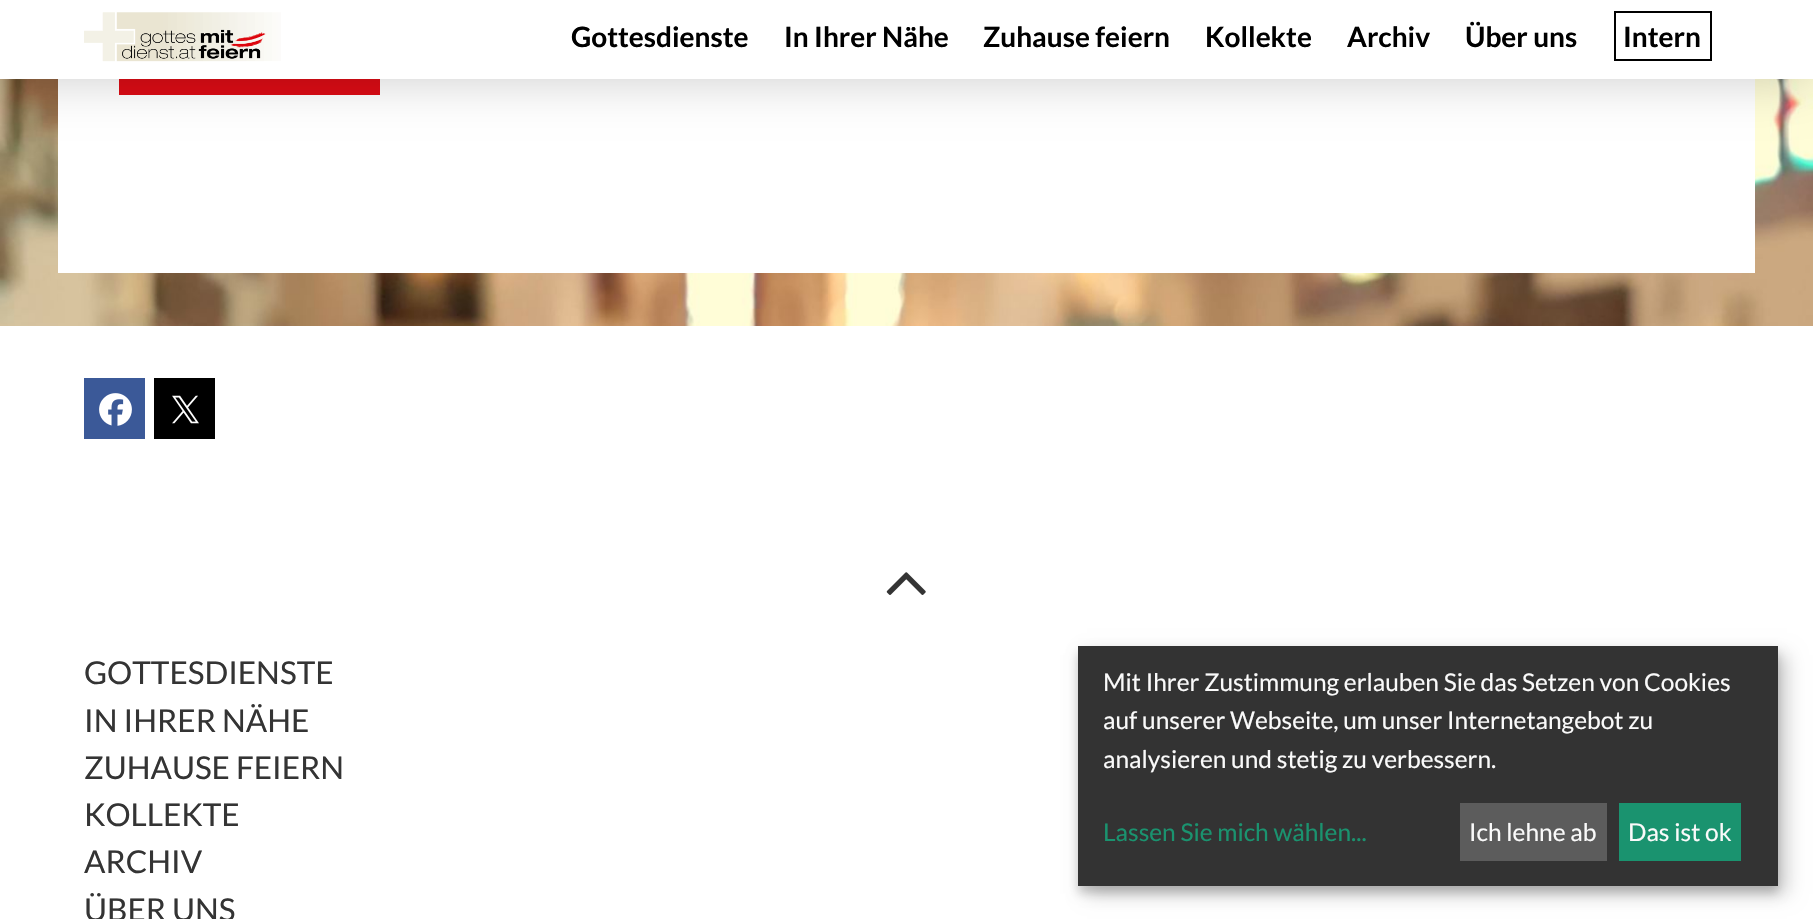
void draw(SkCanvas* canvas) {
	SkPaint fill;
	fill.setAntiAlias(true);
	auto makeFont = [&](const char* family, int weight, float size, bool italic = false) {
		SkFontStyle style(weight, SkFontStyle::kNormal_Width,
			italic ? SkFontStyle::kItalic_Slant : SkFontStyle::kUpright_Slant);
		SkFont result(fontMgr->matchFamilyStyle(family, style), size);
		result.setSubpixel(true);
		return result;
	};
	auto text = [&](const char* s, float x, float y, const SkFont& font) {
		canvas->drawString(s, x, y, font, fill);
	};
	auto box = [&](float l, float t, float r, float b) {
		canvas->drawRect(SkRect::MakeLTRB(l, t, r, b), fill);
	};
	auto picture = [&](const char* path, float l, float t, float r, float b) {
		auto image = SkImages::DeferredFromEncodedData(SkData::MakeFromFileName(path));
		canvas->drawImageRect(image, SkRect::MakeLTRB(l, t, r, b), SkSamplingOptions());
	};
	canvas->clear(0xFFFFFFFF);
	picture("image1.png", 0, 79, 1813, 326);
	fill.setColor(0xFFFFFFFF);
	box(58, 79, 1755, 273);
	fill.setColor(0xFFDC0C15);
	box(119, 79, 380, 95);
	fill.setColor(0x33000000);
	fill.setMaskFilter(SkMaskFilter::MakeBlur(kNormal_SkBlurStyle, 26));
	canvas->drawRect(SkRect::MakeLTRB(0, 0, 1813, 79), fill);
	fill.setMaskFilter(nullptr);
	fill.setColor(0xFFFFFFFF);
	box(0, 0, 1813, 79);
	picture("image0.png", 84, 12, 281, 62);
	fill.setStyle(SkPaint::kStroke_Style);
	fill.setStrokeWidth(2);
	fill.setColor(0xFF000000);
	canvas->drawRect(SkRect::MakeLTRB(1615, 12, 1711, 60), fill);
	fill.setStyle(SkPaint::kFill_Style);
	fill.setColor(0xFF3B5998);
	box(84, 378, 145, 439);
	picture("image2.png", 99, 393, 132, 426);
	fill.setColor(0xFF000000);
	box(154, 378, 215, 439);
	picture("image3.png", 172, 395, 199, 424);
	picture("image4.png", 886, 572, 926, 595);
	fill.setColor(0x30000000);
	fill.setMaskFilter(SkMaskFilter::MakeBlur(kNormal_SkBlurStyle, 9));
	canvas->drawRect(SkRect::MakeLTRB(1087, 655, 1787, 894), fill);
	fill.setMaskFilter(nullptr);
	fill.setColor(0x33000000);
	fill.setMaskFilter(SkMaskFilter::MakeBlur(kNormal_SkBlurStyle, 5));
	canvas->drawRect(SkRect::MakeLTRB(1078, 653, 1778, 893), fill);
	fill.setMaskFilter(nullptr);
	fill.setColor(0xFF333333);
	box(1078, 646, 1778, 886);
	fill.setColor(0xFF5C5C5C);
	box(1460, 803, 1607, 861);
	fill.setColor(0xFF1A936F);
	box(1619, 803, 1741, 861);
	auto font1 = makeFont("Lato", 700, 28);
	fill.setColor(0xFF000000);
	text("Gottesdienste", 571, 47, font1);
	text("In Ihrer Nähe", 784, 47, font1);
	text("Zuhause feiern", 983, 47, font1);
	text("Kollekte", 1205, 47, font1);
	text("Archiv", 1347, 47, font1);
	text("Über uns", 1465, 47, font1);
	text("Intern", 1623, 47, font1);
	auto font2 = makeFont("Lato", 400, 31.5f);
	fill.setColor(0xFF343434);
	text("GOTTESDIENSTE", 84, 684, font2);
	text("IN IHRER NÄHE", 84, 732, font2);
	text("ZUHAUSE FEIERN", 84, 779, font2);
	text("KOLLEKTE", 84, 826, font2);
	text("ARCHIV", 84, 873, font2);
	text("ÜBER UNS", 84, 921, font2);
	auto font3 = makeFont("Lato", 400, 24.5f);
	fill.setColor(0xFFFAFAFA);
	text("Mit Ihrer Zustimmung erlauben Sie das Setzen von Cookies", 1103, 691, font3);
	text("auf unserer Webseite, um unser Internetangebot zu", 1103, 729, font3);
	text("analysieren und stetig zu verbessern.", 1103, 768, font3);
	fill.setColor(0xFF1A936F);
	text("Lassen Sie mich wählen...", 1103, 841, font3);
	fill.setColor(0xFFFAFAFA);
	text("Ich lehne ab", 1469, 841, font3);
	text("Das ist ok", 1628, 841, font3);
}
